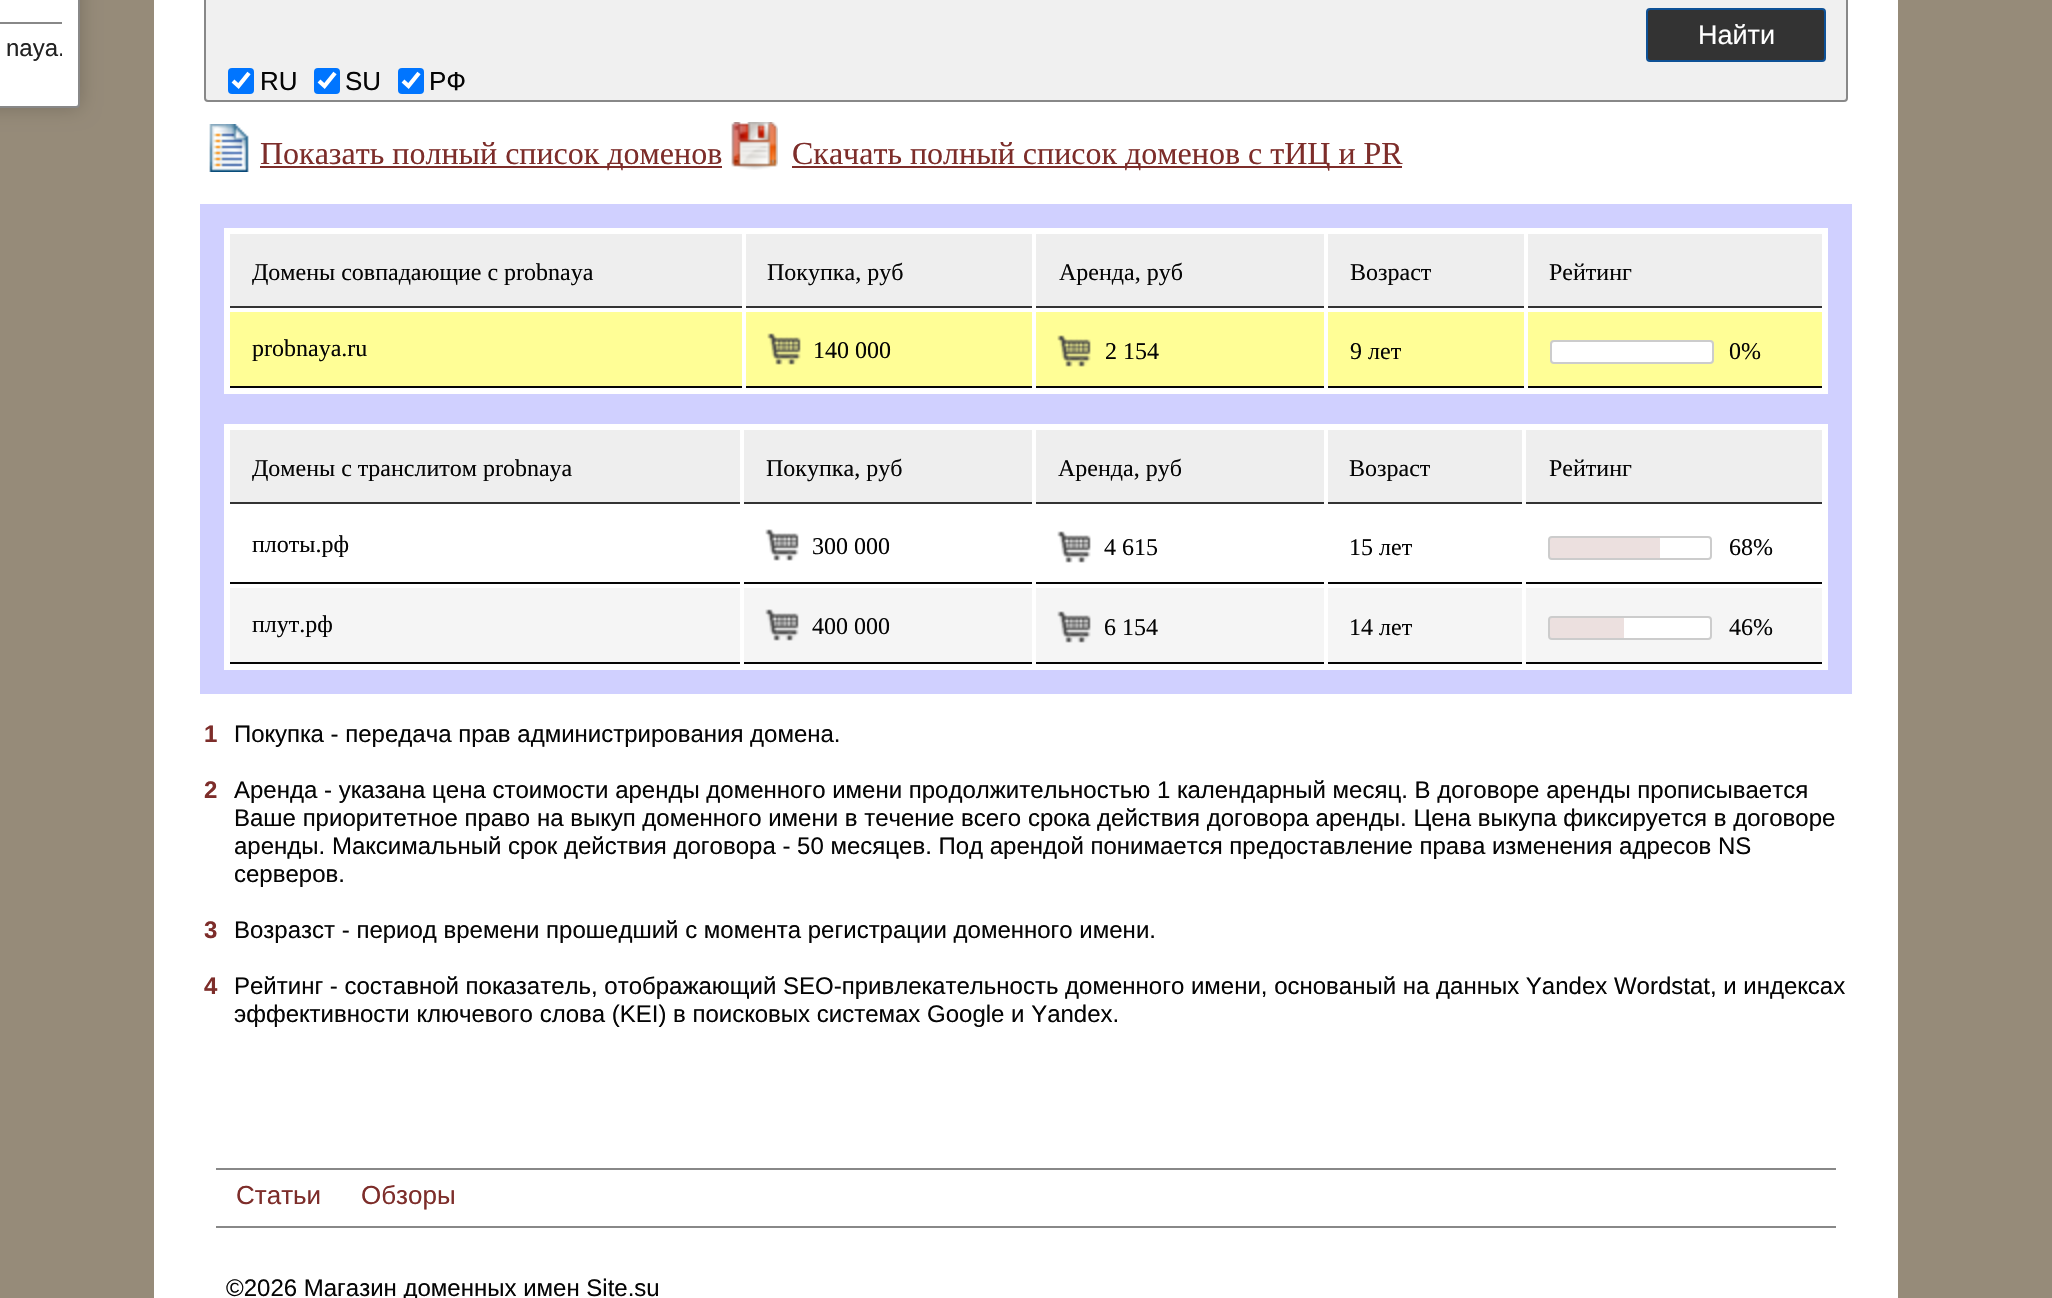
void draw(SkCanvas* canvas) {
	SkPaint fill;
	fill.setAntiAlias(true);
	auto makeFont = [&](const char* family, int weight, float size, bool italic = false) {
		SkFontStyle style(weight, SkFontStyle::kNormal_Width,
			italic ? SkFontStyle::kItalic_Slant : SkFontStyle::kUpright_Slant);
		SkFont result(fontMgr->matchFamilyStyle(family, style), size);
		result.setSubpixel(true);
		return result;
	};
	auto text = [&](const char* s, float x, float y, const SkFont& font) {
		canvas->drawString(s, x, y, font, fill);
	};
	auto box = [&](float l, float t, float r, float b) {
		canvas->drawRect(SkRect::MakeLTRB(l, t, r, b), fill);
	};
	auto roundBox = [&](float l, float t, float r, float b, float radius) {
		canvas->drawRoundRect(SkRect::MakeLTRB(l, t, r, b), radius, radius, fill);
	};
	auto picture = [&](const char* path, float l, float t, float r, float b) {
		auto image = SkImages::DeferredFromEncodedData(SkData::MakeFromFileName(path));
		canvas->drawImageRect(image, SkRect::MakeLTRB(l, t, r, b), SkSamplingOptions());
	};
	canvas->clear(0xFF968B79);
	fill.setColor(0xFFFFFFFF);
	box(154, 0, 1898, 1298);
	fill.setColor(0x33000000);
	fill.setMaskFilter(SkMaskFilter::MakeBlur(kNormal_SkBlurStyle, 10));
	canvas->drawRoundRect(SkRect::MakeLTRB(-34, -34, 80, 108), 4, 4, fill);
	fill.setMaskFilter(nullptr);
	fill.setColor(0xFFFFFFFF);
	canvas->drawRoundRect(SkRect::MakeLTRB(-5, -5, 79, 107), 3, 3, fill);
	fill.setStyle(SkPaint::kStroke_Style);
	fill.setStrokeWidth(2);
	fill.setColor(0xFF888888);
	canvas->drawRoundRect(SkRect::MakeLTRB(-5, -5, 79, 107), 3, 3, fill);
	fill.setStyle(SkPaint::kFill_Style);
	box(0, 22, 62, 24);
	fill.setColor(0xFFF0F0F0);
	canvas->drawRoundRect(SkRect::MakeLTRB(205, -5, 1847, 101), 3, 3, fill);
	fill.setStyle(SkPaint::kStroke_Style);
	fill.setColor(0xFF888888);
	canvas->drawRoundRect(SkRect::MakeLTRB(205, -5, 1847, 101), 3, 3, fill);
	fill.setStyle(SkPaint::kFill_Style);
	fill.setColor(0xFF333333);
	canvas->drawRoundRect(SkRect::MakeLTRB(1647, 9, 1825, 61), 3, 3, fill);
	fill.setStyle(SkPaint::kStroke_Style);
	fill.setColor(0xFF0E5196);
	canvas->drawRoundRect(SkRect::MakeLTRB(1647, 9, 1825, 61), 3, 3, fill);
	fill.setStyle(SkPaint::kFill_Style);
	fill.setColor(0xFF0075FF);
	roundBox(228, 68, 254, 94, 4);
	fill.setStyle(SkPaint::kStroke_Style);
	fill.setStrokeWidth(4.2f);
	fill.setColor(0xFFFFFFFF);
	canvas->drawPath(SkPathBuilder().moveTo(233, 81).lineTo(238.5f, 86).lineTo(249, 73).detach(), fill);
	fill.setStyle(SkPaint::kFill_Style);
	fill.setColor(0xFF0075FF);
	roundBox(314, 68, 340, 94, 4);
	fill.setStyle(SkPaint::kStroke_Style);
	fill.setColor(0xFFFFFFFF);
	canvas->drawPath(SkPathBuilder().moveTo(319, 81).lineTo(324.5f, 86).lineTo(335, 73).detach(), fill);
	fill.setStyle(SkPaint::kFill_Style);
	fill.setColor(0xFF0075FF);
	roundBox(398, 68, 424, 94, 4);
	fill.setStyle(SkPaint::kStroke_Style);
	fill.setColor(0xFFFFFFFF);
	canvas->drawPath(SkPathBuilder().moveTo(403, 81).lineTo(408.5f, 86).lineTo(419, 73).detach(), fill);
	picture("image0.png", 209, 124, 249, 172);
	fill.setStyle(SkPaint::kFill_Style);
	fill.setColor(0xFF7D2D2A);
	box(260, 166, 722, 168);
	picture("image1.png", 731, 122, 778, 170);
	box(792, 166, 1402, 168);
	fill.setColor(0xFFEEEEEE);
	box(230, 234, 742, 306);
	fill.setColor(0xFF333333);
	box(230, 306, 742, 308);
	fill.setColor(0xFFEEEEEE);
	box(746, 234, 1032, 306);
	fill.setColor(0xFF333333);
	box(746, 306, 1032, 308);
	fill.setColor(0xFFEEEEEE);
	box(1036, 234, 1324, 306);
	fill.setColor(0xFF333333);
	box(1036, 306, 1324, 308);
	fill.setColor(0xFFEEEEEE);
	box(1328, 234, 1524, 306);
	fill.setColor(0xFF333333);
	box(1328, 306, 1524, 308);
	fill.setColor(0xFFEEEEEE);
	box(1528, 234, 1822, 306);
	fill.setColor(0xFF333333);
	box(1528, 306, 1822, 308);
	fill.setColor(0xFFFFFE96);
	box(230, 312, 742, 386);
	fill.setColor(0xFF050505);
	box(230, 386, 742, 388);
	fill.setColor(0xFFFFFE96);
	box(746, 312, 1032, 386);
	fill.setColor(0xFF050505);
	box(746, 386, 1032, 388);
	picture("image2.png", 767, 333, 801, 365);
	fill.setColor(0xFFFFFE96);
	box(1036, 312, 1324, 386);
	fill.setColor(0xFF050505);
	box(1036, 386, 1324, 388);
	picture("image2.png", 1057, 335, 1091, 367);
	fill.setColor(0xFFFFFE96);
	box(1328, 312, 1524, 386);
	fill.setColor(0xFF050505);
	box(1328, 386, 1524, 388);
	fill.setColor(0xFFFFFE96);
	box(1528, 312, 1822, 386);
	fill.setColor(0xFF050505);
	box(1528, 386, 1822, 388);
	fill.setStyle(SkPaint::kStroke_Style);
	fill.setStrokeWidth(24);
	fill.setColor(0xFFD0D0FF);
	canvas->drawRect(SkRect::MakeLTRB(212, 216, 1840, 406), fill);
	fill.setStyle(SkPaint::kFill_Style);
	fill.setColor(0xFFFFFFFF);
	canvas->drawRoundRect(SkRect::MakeLTRB(1551, 341, 1713, 363), 3, 3, fill);
	fill.setStyle(SkPaint::kStroke_Style);
	fill.setStrokeWidth(2);
	fill.setColor(0xFFCCCCCC);
	canvas->drawRoundRect(SkRect::MakeLTRB(1551, 341, 1713, 363), 3, 3, fill);
	fill.setStyle(SkPaint::kFill_Style);
	fill.setColor(0xFFEEEEEE);
	box(230, 430, 740, 502);
	fill.setColor(0xFF333333);
	box(230, 502, 740, 504);
	fill.setColor(0xFFEEEEEE);
	box(744, 430, 1032, 502);
	fill.setColor(0xFF333333);
	box(744, 502, 1032, 504);
	fill.setColor(0xFFEEEEEE);
	box(1036, 430, 1324, 502);
	fill.setColor(0xFF333333);
	box(1036, 502, 1324, 504);
	fill.setColor(0xFFEEEEEE);
	box(1328, 430, 1522, 502);
	fill.setColor(0xFF333333);
	box(1328, 502, 1522, 504);
	fill.setColor(0xFFEEEEEE);
	box(1526, 430, 1822, 502);
	fill.setColor(0xFF333333);
	box(1526, 502, 1822, 504);
	fill.setColor(0xFF050505);
	box(230, 582, 740, 584);
	box(744, 582, 1032, 584);
	picture("image3.png", 765, 529, 799, 561);
	box(1036, 582, 1324, 584);
	picture("image3.png", 1057, 531, 1091, 563);
	box(1328, 582, 1522, 584);
	box(1526, 582, 1822, 584);
	fill.setColor(0xFFF5F5F5);
	box(230, 588, 740, 662);
	fill.setColor(0xFF050505);
	box(230, 662, 740, 664);
	fill.setColor(0xFFF5F5F5);
	box(744, 588, 1032, 662);
	fill.setColor(0xFF050505);
	box(744, 662, 1032, 664);
	picture("image4.png", 765, 609, 799, 641);
	fill.setColor(0xFFF5F5F5);
	box(1036, 588, 1324, 662);
	fill.setColor(0xFF050505);
	box(1036, 662, 1324, 664);
	picture("image4.png", 1057, 611, 1091, 643);
	fill.setColor(0xFFF5F5F5);
	box(1328, 588, 1522, 662);
	fill.setColor(0xFF050505);
	box(1328, 662, 1522, 664);
	fill.setColor(0xFFF5F5F5);
	box(1526, 588, 1822, 662);
	fill.setColor(0xFF050505);
	box(1526, 662, 1822, 664);
	fill.setStyle(SkPaint::kStroke_Style);
	fill.setStrokeWidth(24);
	fill.setColor(0xFFD0D0FF);
	canvas->drawRect(SkRect::MakeLTRB(212, 412, 1840, 682), fill);
	fill.setStrokeWidth(2);
	fill.setColor(0xFFCCCCCC);
	canvas->drawRoundRect(SkRect::MakeLTRB(1549, 537, 1711, 559), 3, 3, fill);
	fill.setStyle(SkPaint::kFill_Style);
	fill.setColor(0x267D2D2A);
	canvas->drawPath(SkPathBuilder().moveTo(1552, 538).lineTo(1660, 538).lineTo(1660, 558).lineTo(1552, 558).cubicTo(1551, 558, 1550, 557, 1550, 556).lineTo(1550, 540).cubicTo(1550, 539, 1551, 538, 1552, 538).close().detach(), fill);
	fill.setColor(0xFFFFFFFF);
	canvas->drawRoundRect(SkRect::MakeLTRB(1549, 617, 1711, 639), 3, 3, fill);
	fill.setStyle(SkPaint::kStroke_Style);
	fill.setColor(0xFFCCCCCC);
	canvas->drawRoundRect(SkRect::MakeLTRB(1549, 617, 1711, 639), 3, 3, fill);
	fill.setStyle(SkPaint::kFill_Style);
	fill.setColor(0x267D2D2A);
	canvas->drawPath(SkPathBuilder().moveTo(1552, 618).lineTo(1624, 618).lineTo(1624, 638).lineTo(1552, 638).cubicTo(1551, 638, 1550, 637, 1550, 636).lineTo(1550, 620).cubicTo(1550, 619, 1551, 618, 1552, 618).close().detach(), fill);
	fill.setColor(0xFF888888);
	box(216, 1168, 1836, 1170);
	box(216, 1226, 1836, 1228);
	canvas->save();
	canvas->clipRect(SkRect::MakeLTRB(0, 24, 62, 72));
	auto font1 = makeFont("Liberation Sans", 400, 24);
	fill.setColor(0xFF222222);
	text("naya.", 6, 56, font1);
	canvas->restore();
	auto font2 = makeFont("Liberation Sans", 400, 27);
	fill.setColor(0xFFFFFFFF);
	text("Найти", 1698, 44, font2);
	auto font3 = makeFont("Liberation Sans", 400, 26);
	fill.setColor(0xFF050505);
	text("RU", 260, 90, font3);
	text("SU", 345, 90, font3);
	text("РФ", 429, 90, font3);
	auto font4 = makeFont("Liberation Serif", 400, 32);
	fill.setColor(0xFF7D2D2A);
	text("Показать полный список доменов", 260, 164, font4);
	text("Скачать полный список доменов с тИЦ и PR", 792, 164, font4);
	auto font5 = makeFont("Liberation Serif", 400, 24);
	fill.setColor(0xFF050505);
	text("Домены совпадающие с probnaya", 252, 280, font5);
	text("Покупка, руб", 767, 280, font5);
	text("Аренда, руб", 1059, 280, font5);
	text("Возраст", 1350, 280, font5);
	text("Рейтинг", 1549, 280, font5);
	text("probnaya.ru", 252, 356, font5);
	text("140 000", 813, 358, font5);
	text("2 154", 1105, 359, font5);
	text("9 лет", 1350, 359, font5);
	text("0%", 1729, 359, font5);
	text("Домены с транслитом probnaya", 252, 476, font5);
	text("Покупка, руб", 766, 476, font5);
	text("Аренда, руб", 1058, 476, font5);
	text("Возраст", 1349, 476, font5);
	text("Рейтинг", 1549, 476, font5);
	text("плоты.рф", 252, 552, font5);
	text("300 000", 812, 554, font5);
	text("4 615", 1104, 555, font5);
	text("15 лет", 1349, 555, font5);
	text("68%", 1729, 555, font5);
	text("плут.рф", 252, 632, font5);
	text("400 000", 812, 634, font5);
	text("6 154", 1104, 635, font5);
	text("14 лет", 1349, 635, font5);
	text("46%", 1729, 635, font5);
	auto font6 = makeFont("Liberation Sans", 700, 24);
	fill.setColor(0xFF7D2D2A);
	text("1", 204, 742, font6);
	fill.setColor(0xFF050505);
	text("Покупка - передача прав администрирования домена.", 234, 742, font1);
	fill.setColor(0xFF7D2D2A);
	text("2", 204, 798, font6);
	fill.setColor(0xFF050505);
	text("Аренда - указана цена стоимости аренды доменного имени продолжительностью 1 календарный месяц. В договоре аренды прописывается", 234, 798, font1);
	text("Ваше приоритетное право на выкуп доменного имени в течение всего срока действия договора аренды. Цена выкупа фиксируется в договоре", 234, 826, font1);
	text("аренды. Максимальный срок действия договора - 50 месяцев. Под арендой понимается предоставление права изменения адресов NS", 234, 854, font1);
	text("серверов.", 234, 882, font1);
	fill.setColor(0xFF7D2D2A);
	text("3", 204, 938, font6);
	fill.setColor(0xFF050505);
	text("Возразст - период времени прошедший с момента регистрации доменного имени.", 234, 938, font1);
	fill.setColor(0xFF7D2D2A);
	text("4", 204, 994, font6);
	fill.setColor(0xFF050505);
	text("Рейтинг - составной показатель, отображающий SEO-привлекательность доменного имени, основаный на данных Yandex Wordstat, и индексах", 234, 994, font1);
	text("эффективности ключевого слова (KEI) в поисковых системах Google и Yandex.", 234, 1022, font1);
	fill.setColor(0xFF7D2D2A);
	text("Статьи", 236, 1204, font3);
	text("Обзоры", 361, 1204, font3);
	fill.setColor(0xFF050505);
	text("©2026 Магазин доменных имен Site.su", 226, 1296, font1);
}
